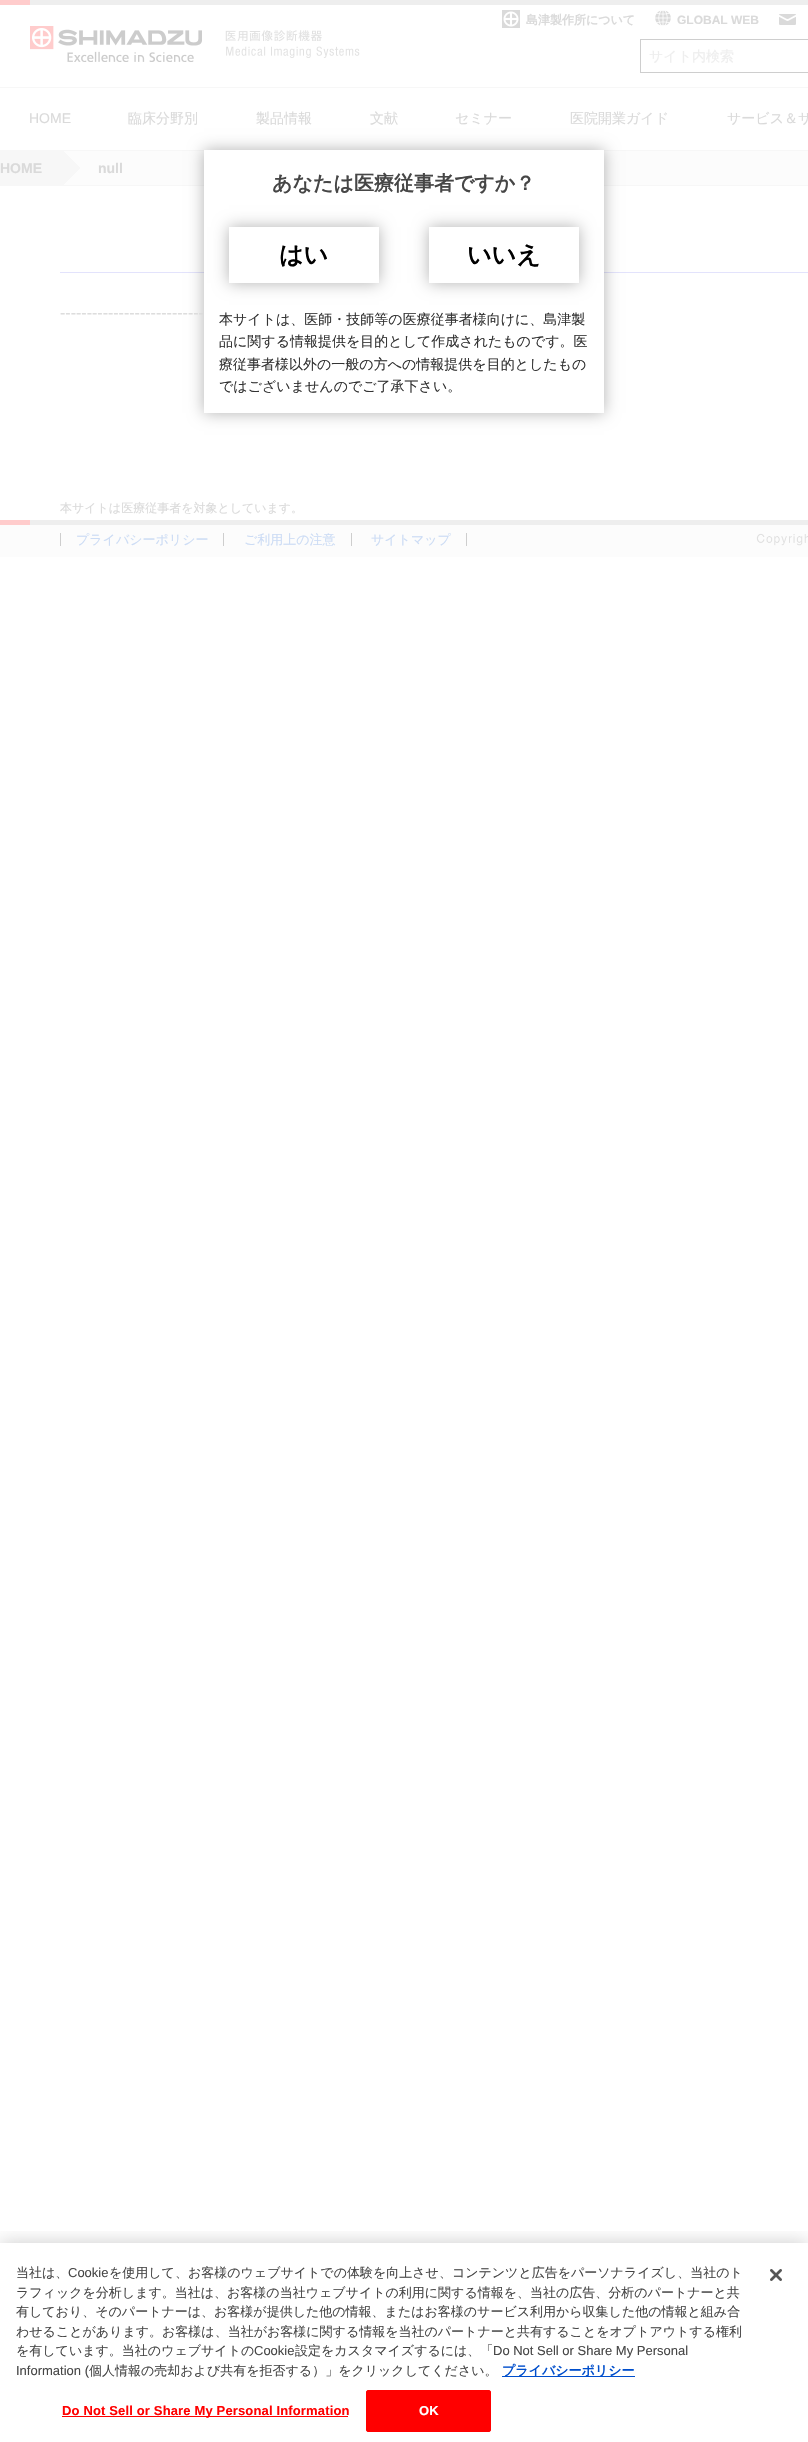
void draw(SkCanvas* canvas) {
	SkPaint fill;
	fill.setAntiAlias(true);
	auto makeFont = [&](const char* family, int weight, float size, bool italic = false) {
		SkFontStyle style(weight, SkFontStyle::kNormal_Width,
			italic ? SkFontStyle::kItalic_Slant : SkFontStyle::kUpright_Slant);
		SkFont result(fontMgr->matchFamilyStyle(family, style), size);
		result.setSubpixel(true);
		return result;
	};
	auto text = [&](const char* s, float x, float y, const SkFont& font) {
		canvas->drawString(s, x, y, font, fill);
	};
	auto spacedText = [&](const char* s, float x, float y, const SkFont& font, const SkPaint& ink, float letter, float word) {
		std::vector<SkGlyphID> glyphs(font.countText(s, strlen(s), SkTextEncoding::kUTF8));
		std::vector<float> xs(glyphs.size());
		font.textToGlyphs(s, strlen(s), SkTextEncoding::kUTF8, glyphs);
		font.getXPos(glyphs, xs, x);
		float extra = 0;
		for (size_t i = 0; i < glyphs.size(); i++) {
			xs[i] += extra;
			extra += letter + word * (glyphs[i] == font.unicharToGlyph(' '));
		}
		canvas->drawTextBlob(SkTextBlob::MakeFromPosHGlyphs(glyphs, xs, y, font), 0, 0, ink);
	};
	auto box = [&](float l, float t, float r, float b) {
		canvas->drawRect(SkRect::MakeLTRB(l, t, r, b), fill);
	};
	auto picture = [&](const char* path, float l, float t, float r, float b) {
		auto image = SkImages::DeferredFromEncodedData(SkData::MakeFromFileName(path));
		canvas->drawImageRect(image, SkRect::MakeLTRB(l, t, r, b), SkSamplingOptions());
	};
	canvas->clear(0xFFFFFFFF);
	fill.setColor(0xFFEEEEEE);
	box(30, 0, 808, 5);
	fill.setColor(0xFFF7F7F7);
	box(0, 87, 808, 88);
	fill.setColor(0xFFFFCCCC);
	box(0, 0, 30, 5);
	picture("image0.png", 30, 26, 202, 62);
	picture("image1.png", 225, 30, 360, 58);
	picture("image2.png", 502, 10, 520, 28);
	picture("image3.png", 655, 10, 671, 26);
	picture("image4.png", 779, 14, 796, 25);
	fill.setStyle(SkPaint::kStroke_Style);
	fill.setStrokeWidth(1);
	fill.setColor(0xFFCECECE);
	canvas->drawRect(SkRect::MakeLTRB(640.5f, 39.5f, 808.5f, 72.5f), fill);
	fill.setStyle(SkPaint::kFill_Style);
	fill.setColor(0xFFF7F7F7);
	box(0, 150, 808, 151);
	fill.setColor(0xFFFCFCFC);
	box(81, 151, 808, 185);
	fill.setColor(0xFFF7F7F7);
	box(0, 185, 808, 186);
	box(0, 151, 64, 185);
	{
		const SkColor colors[] = {0xFFFCFCFC, 0xFFF7F7F7};
		const float stops[] = {0.5f, 0.51f};
		const SkPoint ends[] = {{81, 185}, {64, 168}};
		fill.setShader(SkGradientShader::MakeLinear(ends, colors, stops, 2, SkTileMode::kClamp));
		fill.setAlpha(255);
	}
	box(64, 168, 81, 185);
	{
		const SkColor colors[] = {0xFFFCFCFC, 0xFFF7F7F7};
		const float stops[] = {0.5f, 0.51f};
		const SkPoint ends[] = {{81, 151}, {64, 168}};
		fill.setShader(SkGradientShader::MakeLinear(ends, colors, stops, 2, SkTileMode::kClamp));
		fill.setAlpha(255);
	}
	box(64, 151, 81, 168);
	fill.setShader(nullptr);
	fill.setColor(0xFFE3E3FC);
	box(60, 272, 808, 273);
	fill.setColor(0x4D000000);
	fill.setMaskFilter(SkMaskFilter::MakeBlur(kNormal_SkBlurStyle, 7.5f));
	canvas->drawRect(SkRect::MakeLTRB(204, 150, 604, 413), fill);
	fill.setMaskFilter(nullptr);
	fill.setColor(0xFFFFFFFF);
	box(204, 150, 604, 413);
	canvas->save();
	canvas->clipPath(SkPathBuilder(SkPathFillType::kEvenOdd).moveTo(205, 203).lineTo(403, 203).lineTo(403, 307).lineTo(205, 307).close().moveTo(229, 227).lineTo(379, 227).lineTo(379, 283).lineTo(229, 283).close().detach(), true);
	fill.setColor(0x4D000000);
	fill.setMaskFilter(SkMaskFilter::MakeBlur(kNormal_SkBlurStyle, 7.5f));
	canvas->drawRect(SkRect::MakeLTRB(229, 227, 379, 283), fill);
	fill.setMaskFilter(nullptr);
	canvas->restore();
	canvas->save();
	canvas->clipPath(SkPathBuilder(SkPathFillType::kEvenOdd).moveTo(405, 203).lineTo(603, 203).lineTo(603, 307).lineTo(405, 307).close().moveTo(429, 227).lineTo(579, 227).lineTo(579, 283).lineTo(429, 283).close().detach(), true);
	fill.setMaskFilter(SkMaskFilter::MakeBlur(kNormal_SkBlurStyle, 7.5f));
	canvas->drawRect(SkRect::MakeLTRB(429, 227, 579, 283), fill);
	fill.setMaskFilter(nullptr);
	canvas->restore();
	fill.setColor(0xFFFCFCFC);
	box(0, 525, 808, 557);
	fill.setColor(0xFFEEEEEE);
	box(30, 520, 808, 525);
	fill.setColor(0xFFFFCCCC);
	box(0, 520, 30, 525);
	fill.setColor(0xFFCECECE);
	box(223, 533, 224, 546);
	box(60, 533, 61, 546);
	box(351, 533, 352, 546);
	box(466, 533, 467, 546);
	picture("image5.png", 756, 533, 808, 546);
	canvas->save();
	canvas->clipRect(SkRect::MakeLTRB(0, 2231, 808, 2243));
	fill.setColor(0x33000000);
	fill.setMaskFilter(SkMaskFilter::MakeBlur(kNormal_SkBlurStyle, 9));
	canvas->drawRect(SkRect::MakeLTRB(0, 2243, 808, 2442), fill);
	fill.setMaskFilter(nullptr);
	canvas->restore();
	fill.setColor(0xFF004ECC);
	box(502, 2376, 635, 2377);
	fill.setColor(0xFFFF0000);
	box(62, 2416, 348, 2417);
	canvas->drawRoundRect(SkRect::MakeLTRB(366.5f, 2390.5f, 490.5f, 2431.5f), 1.5f, 1.5f, fill);
	fill.setStyle(SkPaint::kStroke_Style);
	canvas->drawRoundRect(SkRect::MakeLTRB(366.5f, 2390.5f, 490.5f, 2431.5f), 1.5f, 1.5f, fill);
	picture("image6.png", 770, 2269, 782, 2281);
	auto font1 = makeFont("WenQuanYi Zen Hei", 700, 12);
	fill.setStyle(SkPaint::kFill_Style);
	fill.setColor(0xFFDADADA);
	text("島津製作所について", 526, 24, font1);
	auto font2 = makeFont("Liberation Sans", 700, 12);
	text("GLOBAL WEB", 677, 24, font2);
	auto font3 = makeFont("WenQuanYi Zen Hei", 500, 14);
	fill.setColor(0xFFEEEEEE);
	text("サイト内検索", 649, 61, font3);
	auto font4 = makeFont("Liberation Sans", 400, 14);
	fill.setColor(0xFFDADADA);
	text("HOME", 29, 123, font4);
	text("臨床分野別", 128, 123, font3);
	text("製品情報", 256, 123, font3);
	text("文献", 370, 123, font3);
	text("セミナー", 455, 123, font3);
	text("医院開業ガイド", 570, 123, font3);
	text("サービス＆サ", 727, 123, font3);
	auto font5 = makeFont("Liberation Sans", 700, 14);
	text("HOME", 0, 173, font5);
	text("null", 98, 173, font5);
	auto font6 = makeFont("Liberation Sans", 400, 16);
	text("---------------------------", 60, 318, font6);
	auto font7 = makeFont("WenQuanYi Zen Hei", 700, 20);
	fill.setColor(0xFF464646);
	text("あなたは医療従事者ですか？", 272, 190, font7);
	auto font8 = makeFont("WenQuanYi Zen Hei", 700, 24);
	fill.setColor(0xFF000000);
	text("はい", 279, 263, font8);
	text("いいえ", 467, 263, font8);
	fill.setColor(0xFF333333);
	text("本サイトは、医師・技師等の医療従事者様向けに、島津製", 219, 324, font3);
	text("品に関する情報提供を目的として作成されたものです。医", 219, 346, font3);
	text("療従事者様以外の一般の方への情報提供を目的としたもの", 219, 369, font3);
	text("ではございませんのでご了承下さい。", 219, 391, font3);
	auto font9 = makeFont("WenQuanYi Zen Hei", 500, 12);
	fill.setColor(0xFFDADADA);
	text("本サイトは医療従事者を対象としています。", 60, 512, font9);
	auto font10 = makeFont("WenQuanYi Zen Hei", 500, 13);
	fill.setColor(0xFFCCDCF5);
	text("プライバシーポリシー", 76, 544, font10);
	text("ご利用上の注意", 244, 544, font10);
	text("サイトマップ", 371, 544, font10);
	fill.setColor(0xFF464646);
	text("当社は、", 16, 2277, font10);
	auto font11 = makeFont("Liberation Sans", 400, 13);
	text("Cookie", 68, 2277, font11);
	text("を使用して、お客様のウェブサイトでの体験を向上させ、コンテンツと広告をパーソナライズし、当社のト", 109, 2277, font10);
	text("ラフィックを分析します。当社は、お客様の当社ウェブサイトの利用に関する情報を、当社の広告、分析のパートナーと共", 16, 2297, font10);
	text("有しており、そのパートナーは、お客様が提供した他の情報、またはお客様のサービス利用から収集した他の情報と組み合", 16, 2316, font10);
	text("わせることがあります。お客様は、当社がお客様に関する情報を当社のパートナーと共有することをオプトアウトする権利", 16, 2336, font10);
	text("を有しています。当社のウェブサイトの", 16, 2355, font10);
	text("Cookie", 254, 2355, font11);
	text("設定をカスタマイズするには、「", 295, 2355, font10);
	text("Do Not Sell or Share My Personal", 493, 2355, font11);
	text("Information (", 16, 2375, font11);
	text("個人情報の売却および共有を拒否する）」をクリックしてください。", 89, 2375, font10);
	auto font12 = makeFont("WenQuanYi Zen Hei", 700, 13);
	fill.setColor(0xFF004ECC);
	text("プライバシーポリシー", 502, 2375, font12);
	auto font13 = makeFont("Liberation Sans", 700, 13);
	fill.setColor(0xFFFF0000);
	spacedText("Do Not Sell or Share My Personal Information", 62, 2415, font13, fill, 0.15f, 0);
	fill.setColor(0xFFFFFFFF);
	spacedText("OK", 419, 2415, font13, fill, 0.15f, 0);
}
